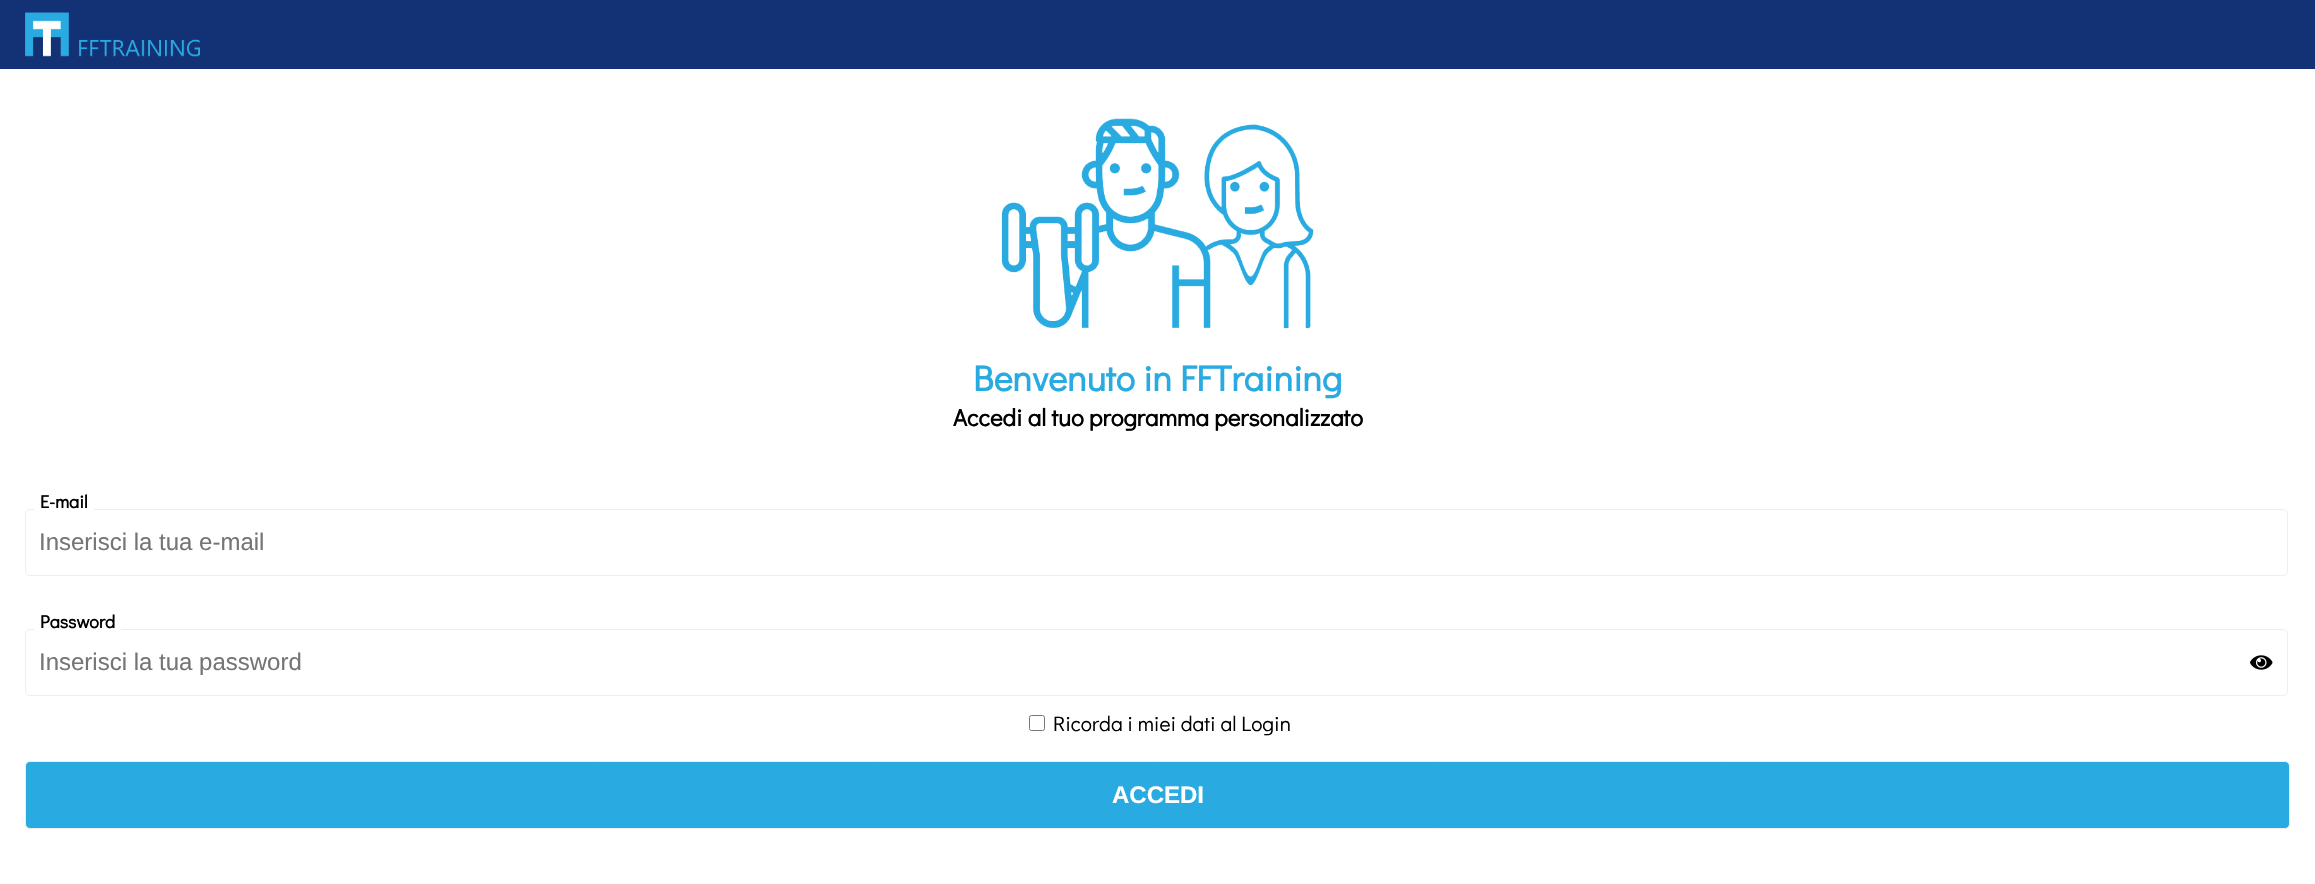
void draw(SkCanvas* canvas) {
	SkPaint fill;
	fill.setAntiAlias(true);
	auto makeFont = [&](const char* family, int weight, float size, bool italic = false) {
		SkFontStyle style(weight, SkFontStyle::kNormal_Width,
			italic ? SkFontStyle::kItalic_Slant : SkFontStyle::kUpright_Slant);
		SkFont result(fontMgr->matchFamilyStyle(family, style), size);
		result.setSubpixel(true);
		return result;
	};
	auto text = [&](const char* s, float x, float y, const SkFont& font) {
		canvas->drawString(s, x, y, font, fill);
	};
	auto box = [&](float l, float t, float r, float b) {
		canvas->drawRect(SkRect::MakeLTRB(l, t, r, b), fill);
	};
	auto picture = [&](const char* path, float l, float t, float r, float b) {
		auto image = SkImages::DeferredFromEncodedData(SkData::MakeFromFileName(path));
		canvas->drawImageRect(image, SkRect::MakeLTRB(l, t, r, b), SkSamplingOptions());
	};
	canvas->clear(0xFFFFFFFF);
	fill.setColor(0xFF133275);
	box(0, 0, 2315, 69);
	picture("image0.png", 25, 12, 200, 57);
	picture("image1.png", 1001, 118, 1314, 329);
	fill.setStyle(SkPaint::kStroke_Style);
	fill.setStrokeWidth(1);
	fill.setColor(0xFFEEEEEE);
	canvas->drawRoundRect(SkRect::MakeLTRB(25.5f, 509.5f, 2287.5f, 575.5f), 4.5f, 4.5f, fill);
	fill.setStyle(SkPaint::kFill_Style);
	fill.setColor(0xFFFFFFFF);
	box(34, 509, 94, 510);
	fill.setStyle(SkPaint::kStroke_Style);
	fill.setColor(0xFFEEEEEE);
	canvas->drawRoundRect(SkRect::MakeLTRB(25.5f, 629.5f, 2287.5f, 695.5f), 4.5f, 4.5f, fill);
	fill.setStyle(SkPaint::kFill_Style);
	fill.setColor(0xFFFFFFFF);
	box(34, 629, 121, 630);
	picture("image2.png", 2250, 655, 2273, 670);
	fill.setStyle(SkPaint::kStroke_Style);
	fill.setColor(0xFF767676);
	canvas->drawRoundRect(SkRect::MakeLTRB(1029.5f, 715.5f, 1044.5f, 730.5f), 2, 2, fill);
	fill.setStyle(SkPaint::kFill_Style);
	fill.setColor(0xFF29ABE2);
	canvas->drawRoundRect(SkRect::MakeLTRB(25.5f, 761.5f, 2289.5f, 828.5f), 4.5f, 4.5f, fill);
	fill.setStyle(SkPaint::kStroke_Style);
	fill.setColor(0xFFEEEEEE);
	canvas->drawRoundRect(SkRect::MakeLTRB(25.5f, 761.5f, 2289.5f, 828.5f), 4.5f, 4.5f, fill);
	auto font1 = makeFont("Didact Gothic", 700, 36);
	fill.setStyle(SkPaint::kFill_Style);
	fill.setColor(0xFF29ABE2);
	text("Benvenuto in FFTraining", 973, 391, font1);
	auto font2 = makeFont("Didact Gothic", 700, 24);
	fill.setColor(0xFF000000);
	text("Accedi al tuo programma personalizzato", 953, 426, font2);
	auto font3 = makeFont("Didact Gothic", 700, 18);
	text("E-mail", 40, 508, font3);
	auto font4 = makeFont("Liberation Sans", 400, 24);
	fill.setColor(0xFF757575);
	text("Inserisci la tua e-mail", 39, 550, font4);
	fill.setColor(0xFF000000);
	text("Password", 40, 628, font3);
	fill.setColor(0xFF757575);
	text("Inserisci la tua password", 39, 670, font4);
	auto font5 = makeFont("Didact Gothic", 400, 21);
	fill.setColor(0xFF000000);
	text("Ricorda i miei dati al Login", 1053, 731, font5);
	auto font6 = makeFont("Liberation Sans", 700, 24);
	fill.setColor(0xFFFFFFFF);
	text("ACCEDI", 1112, 803, font6);
}
